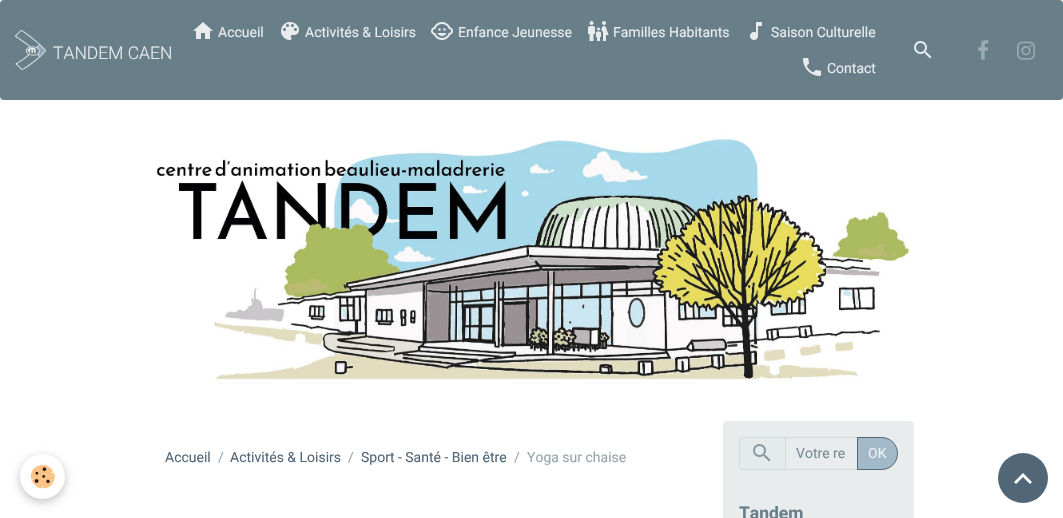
void draw(SkCanvas* canvas) {
	SkPaint fill;
	fill.setAntiAlias(true);
	auto makeFont = [&](const char* family, int weight, float size, bool italic = false) {
		SkFontStyle style(weight, SkFontStyle::kNormal_Width,
			italic ? SkFontStyle::kItalic_Slant : SkFontStyle::kUpright_Slant);
		SkFont result(fontMgr->matchFamilyStyle(family, style), size);
		result.setSubpixel(true);
		return result;
	};
	auto text = [&](const char* s, float x, float y, const SkFont& font) {
		canvas->drawString(s, x, y, font, fill);
	};
	auto roundBox = [&](float l, float t, float r, float b, float radius) {
		canvas->drawRoundRect(SkRect::MakeLTRB(l, t, r, b), radius, radius, fill);
	};
	auto picture = [&](const char* path, float l, float t, float r, float b) {
		auto image = SkImages::DeferredFromEncodedData(SkData::MakeFromFileName(path));
		canvas->drawImageRect(image, SkRect::MakeLTRB(l, t, r, b), SkSamplingOptions());
	};
	canvas->clear(0xFFFFFFFF);
	fill.setColor(0xFF687E89);
	roundBox(0, 0, 1063, 100, 4);
	picture("image0.png", 14, 30, 47, 70);
	picture("image1.png", 193, 22, 213, 39);
	picture("image2.png", 281, 22, 299, 40);
	picture("image3.png", 431, 22, 453, 40);
	picture("image4.png", 588, 21, 609, 41);
	picture("image5.png", 750, 22, 762, 40);
	picture("image6.png", 803, 58, 821, 76);
	picture("image7.png", 914, 41, 932, 59);
	picture("image8.png", 978, 40, 989, 60);
	picture("image9.png", 1017, 41, 1035, 60);
	picture("image10.png", 155, 134, 910, 384);
	fill.setColor(0x3D000000);
	fill.setMaskFilter(SkMaskFilter::MakeBlur(kNormal_SkBlurStyle, 5));
	canvas->drawRoundRect(SkRect::MakeLTRB(20, 457, 65, 502), 22.5f, 22.5f, fill);
	fill.setMaskFilter(nullptr);
	fill.setColor(0xFFFFFFFF);
	canvas->drawCircle(42.5f, 476.5f, 22.5f, fill);
	picture("image11.png", 30, 464, 55, 489);
	fill.setColor(0xFFE8ECED);
	canvas->drawRoundRect(SkRect::MakeLTRB(723.5f, 421.5f, 913.5f, 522.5f), 3.5f, 3.5f, fill);
	fill.setStyle(SkPaint::kStroke_Style);
	fill.setStrokeWidth(1);
	canvas->drawRoundRect(SkRect::MakeLTRB(723.5f, 421.5f, 913.5f, 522.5f), 3.5f, 3.5f, fill);
	fill.setStyle(SkPaint::kFill_Style);
	fill.setColor(0xFFE5EBEB);
	canvas->drawPath(SkPathBuilder().moveTo(743, 437.5f).lineTo(785.5f, 437.5f).lineTo(785.5f, 469.5f).lineTo(743, 469.5f).cubicTo(741, 469.5f, 739.5f, 468, 739.5f, 466).lineTo(739.5f, 441).cubicTo(739.5f, 439, 741, 437.5f, 743, 437.5f).close().detach(), fill);
	fill.setStyle(SkPaint::kStroke_Style);
	fill.setColor(0xFFD2D8DC);
	canvas->drawPath(SkPathBuilder().moveTo(743, 437.5f).lineTo(785.5f, 437.5f).lineTo(785.5f, 469.5f).lineTo(743, 469.5f).cubicTo(741, 469.5f, 739.5f, 468, 739.5f, 466).lineTo(739.5f, 441).cubicTo(739.5f, 439, 741, 437.5f, 743, 437.5f).close().detach(), fill);
	picture("image12.png", 753, 444, 771, 462);
	canvas->drawRect(SkRect::MakeLTRB(785.5f, 437.5f, 857.5f, 469.5f), fill);
	fill.setStyle(SkPaint::kFill_Style);
	fill.setColor(0xFFA2B9C9);
	canvas->drawPath(SkPathBuilder().moveTo(857.5f, 437.5f).lineTo(881.5f, 437.5f).cubicTo(890.5f, 437.5f, 897.5f, 444.5f, 897.5f, 453.5f).cubicTo(897.5f, 462.5f, 890.5f, 469.5f, 881.5f, 469.5f).lineTo(857.5f, 469.5f).close().detach(), fill);
	fill.setStyle(SkPaint::kStroke_Style);
	fill.setColor(0xFF516677);
	canvas->drawPath(SkPathBuilder().moveTo(857.5f, 437.5f).lineTo(881.5f, 437.5f).cubicTo(890.5f, 437.5f, 897.5f, 444.5f, 897.5f, 453.5f).cubicTo(897.5f, 462.5f, 890.5f, 469.5f, 881.5f, 469.5f).lineTo(857.5f, 469.5f).close().detach(), fill);
	fill.setStyle(SkPaint::kFill_Style);
	canvas->drawCircle(1023, 478, 25, fill);
	fill.setColor(0xFFFFFFFF);
	canvas->drawPath(SkPathBuilder().moveTo(1023, 473).lineTo(1032, 482).lineTo(1030, 484).lineTo(1023, 477).lineTo(1016, 484).lineTo(1014, 482).close().detach(), fill);
	auto font1 = makeFont("Roboto", 300, 17.5f);
	fill.setColor(0xFFE8ECED);
	text("TANDEM CAEN", 53, 59, font1);
	auto font2 = makeFont("Roboto", 400, 14);
	text("Accueil", 218, 37, font2);
	text("Activités & Loisirs", 305, 37, font2);
	text("Enfance Jeunesse", 458, 37, font2);
	text("Familles Habitants", 613, 37, font2);
	text("Saison Culturelle", 771, 37, font2);
	text("Contact", 827, 73, font2);
	fill.setColor(0xFF516677);
	text("Accueil", 165, 462, font2);
	fill.setColor(0xFF95A5AC);
	text("/", 218, 462, font2);
	fill.setColor(0xFF516677);
	text("Activités & Loisirs", 230, 462, font2);
	fill.setColor(0xFF95A5AC);
	text("/", 348, 462, font2);
	fill.setColor(0xFF516677);
	text("Sport - Santé - Bien être", 361, 462, font2);
	fill.setColor(0xFF95A5AC);
	text("/", 514, 462, font2);
	text("Yoga sur chaise", 527, 462, font2);
	fill.setColor(0xFF778B95);
	text("Votre re", 796, 458, font2);
	fill.setColor(0xFFF0F2F3);
	text("OK", 868, 458, font2);
	auto font3 = makeFont("Roboto", 700, 17.5f);
	fill.setColor(0xFF687E89);
	text("Tandem", 739, 519, font3);
}
